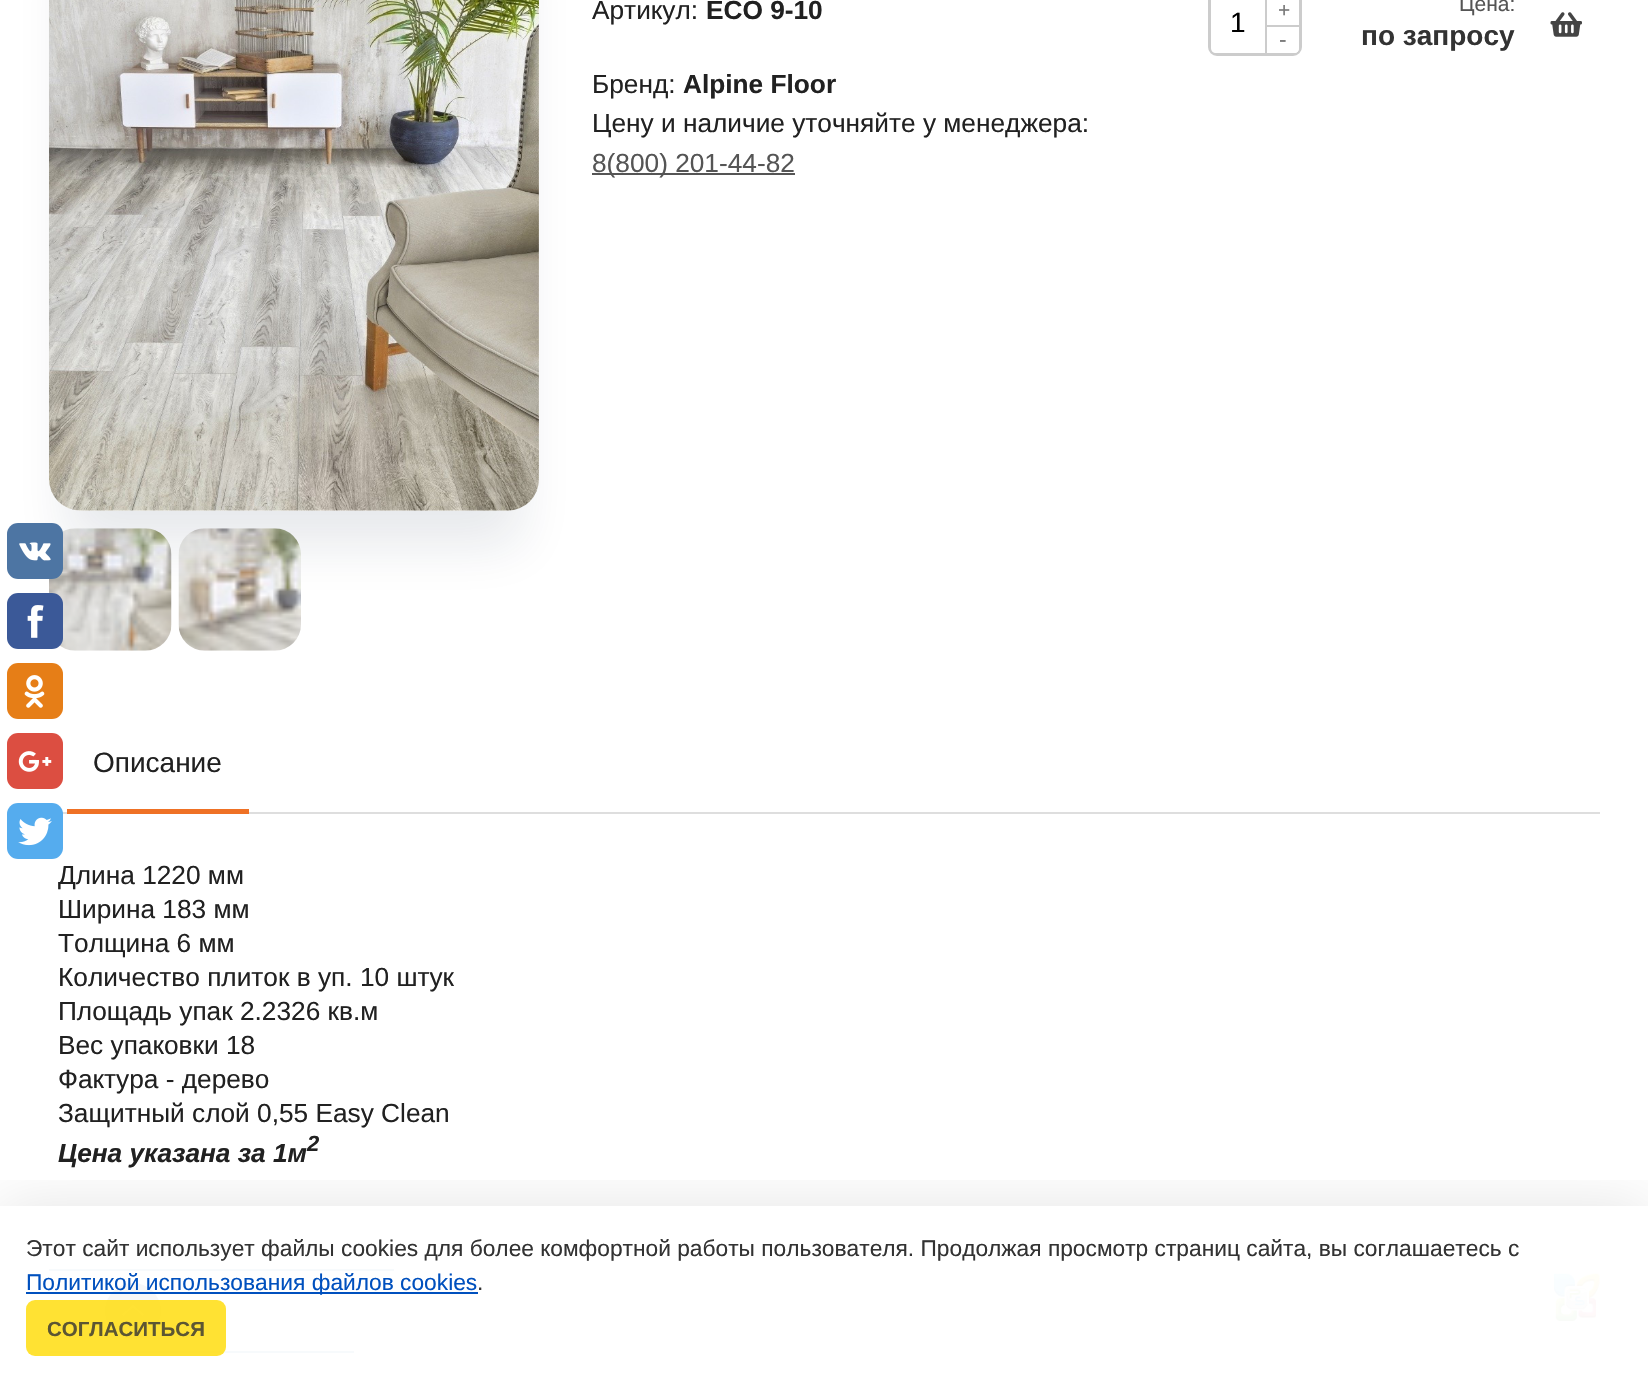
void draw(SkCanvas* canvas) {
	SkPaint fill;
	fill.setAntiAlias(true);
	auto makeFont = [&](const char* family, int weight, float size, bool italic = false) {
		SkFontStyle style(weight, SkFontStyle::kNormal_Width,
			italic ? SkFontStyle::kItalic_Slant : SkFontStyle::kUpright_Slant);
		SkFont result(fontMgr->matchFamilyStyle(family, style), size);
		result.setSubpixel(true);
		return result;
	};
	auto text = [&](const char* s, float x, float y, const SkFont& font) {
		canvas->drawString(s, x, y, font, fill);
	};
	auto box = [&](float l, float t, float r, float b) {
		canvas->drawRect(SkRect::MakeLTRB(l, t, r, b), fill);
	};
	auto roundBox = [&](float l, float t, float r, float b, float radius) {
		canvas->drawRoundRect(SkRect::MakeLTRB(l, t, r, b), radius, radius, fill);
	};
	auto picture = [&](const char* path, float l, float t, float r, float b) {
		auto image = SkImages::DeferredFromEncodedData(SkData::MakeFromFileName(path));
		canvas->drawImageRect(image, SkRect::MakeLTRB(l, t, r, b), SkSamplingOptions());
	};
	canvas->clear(0xFFFFFFFF);
	picture("image1.png", 49, 528, 172, 651);
	picture("image2.png", 178, 528, 301, 651);
	fill.setColor(0xFF555555);
	box(592, 173, 795, 175);
	fill.setColor(0x1A122B48);
	fill.setMaskFilter(SkMaskFilter::MakeBlur(kNormal_SkBlurStyle, 26));
	canvas->drawRoundRect(SkRect::MakeLTRB(67, -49, 522, 546), 14, 14, fill);
	fill.setMaskFilter(nullptr);
	fill.setColor(0xFFFFFFFF);
	roundBox(49, -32, 539, 511, 32);
	picture("image0.png", 49, 0, 539, 511);
	fill.setStyle(SkPaint::kStroke_Style);
	fill.setStrokeWidth(4);
	fill.setColor(0xFFCCCCCC);
	canvas->drawRoundRect(SkRect::MakeLTRB(1210, -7, 1300, 54), 7, 7, fill);
	fill.setStyle(SkPaint::kFill_Style);
	fill.setColor(0xFFFFFFFF);
	canvas->drawPath(SkPathBuilder().moveTo(1265, -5).lineTo(1294, -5).cubicTo(1297, -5, 1299, -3, 1299, 0).lineTo(1299, 48).cubicTo(1299, 51, 1297, 53, 1294, 53).lineTo(1265, 53).close().detach(), fill);
	fill.setColor(0xFFCCCCCC);
	box(1265, 0, 1267, 25);
	fill.setColor(0xFFFFFFFF);
	canvas->drawPath(SkPathBuilder().moveTo(1216, -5).lineTo(1265, -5).lineTo(1265, 53).lineTo(1216, 53).cubicTo(1213, 53, 1211, 51, 1211, 48).lineTo(1211, 0).cubicTo(1211, -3, 1213, -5, 1216, -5).close().detach(), fill);
	canvas->drawPath(SkPathBuilder().moveTo(1265, 25).lineTo(1299, 25).lineTo(1299, 48).cubicTo(1299, 51, 1297, 53, 1294, 53).lineTo(1265, 53).close().detach(), fill);
	fill.setColor(0xFFCCCCCC);
	box(1265, 25, 1299, 27);
	box(1265, 25, 1267, 53);
	picture("image3.png", 1550, 12, 1582, 37);
	fill.setColor(0xFFDEDEDE);
	box(62, 812, 1600, 814);
	fill.setColor(0xFFEF7125);
	box(67, 809, 249, 814);
	fill.setColor(0xFF4D75A3);
	roundBox(7, 523, 63, 579, 11);
	picture("image4.png", 19, 542, 51, 561);
	fill.setColor(0xFF3B5998);
	roundBox(7, 593, 63, 649, 11);
	picture("image5.png", 27, 605, 44, 638);
	fill.setColor(0xFFE67E17);
	roundBox(7, 663, 63, 719, 11);
	picture("image6.png", 24, 675, 45, 708);
	fill.setColor(0xFFDC4E41);
	roundBox(7, 733, 63, 789, 11);
	picture("image7.png", 18, 751, 52, 772);
	fill.setColor(0xFF55ACEE);
	roundBox(7, 803, 63, 859, 11);
	picture("image8.png", 18, 817, 52, 846);
	fill.setColor(0xFFF7F7F7);
	canvas->drawCircle(133, 1311, 28, fill);
	fill.setColor(0xFFFFFFFF);
	canvas->drawPath(SkPathBuilder().moveTo(143, 1316).lineTo(133, 1307.5f).lineTo(123, 1316).lineTo(122, 1314.5f).lineTo(133, 1305).lineTo(144, 1314.5f).close().detach(), fill);
	fill.setColor(0xFFF7FAFC);
	box(49, 1269, 394, 1271);
	box(49, 1351, 354, 1353);
	picture("image9.png", 1554, 1273, 1600, 1321);
	canvas->save();
	canvas->clipRect(SkRect::MakeLTRB(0, 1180, 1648, 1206));
	fill.setColor(0x1A000000);
	fill.setMaskFilter(SkMaskFilter::MakeBlur(kNormal_SkBlurStyle, 30.5f));
	canvas->drawRect(SkRect::MakeLTRB(0, 1206, 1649, 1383), fill);
	fill.setMaskFilter(nullptr);
	canvas->restore();
	fill.setColor(0xFF0050BE);
	box(26, 1292, 478, 1294);
	fill.setColor(0xCCFFDB00);
	roundBox(26, 1300, 226, 1356, 9);
	auto font1 = makeFont("Liberation Sans", 400, 26.25f);
	fill.setColor(0xFF212121);
	text("Артикул:", 592, 19, font1);
	auto font2 = makeFont("Liberation Sans", 700, 26.25f);
	text("ECO 9-10", 706, 19, font2);
	text("Бренд:", 592, 93, font1);
	text("Alpine Floor", 683, 93, font2);
	text("Цену и наличие уточняйте у менеджера:", 592, 132, font1);
	fill.setColor(0xFF555555);
	text("8(800) 201-44-82", 592, 172, font1);
	auto font3 = makeFont("Liberation Sans", 400, 21);
	fill.setColor(0xFF777777);
	text("+", 1278, 17, font3);
	auto font4 = makeFont("Liberation Sans", 400, 28);
	fill.setColor(0xFF000000);
	text("1", 1230, 32, font4);
	auto font5 = makeFont("Liberation Sans", 400, 22.75f);
	fill.setColor(0xFF777777);
	text("-", 1279, 47, font5);
	fill.setColor(0xFF555555);
	text("Цена:", 1459, 11, font3);
	auto font6 = makeFont("Liberation Sans", 700, 28);
	fill.setColor(0xFF333333);
	text("по запросу", 1361, 45, font6);
	fill.setColor(0xFF212121);
	text("Описание", 93, 772, font4);
	text("Длина 1220 мм", 58, 884, font1);
	text("Ширина 183 мм", 58, 918, font1);
	text("Толщина 6 мм", 58, 952, font1);
	text("Количество плиток в уп. 10 штук", 58, 986, font1);
	text("Площадь упак 2.2326 кв.м", 58, 1020, font1);
	text("Вес упаковки 18", 58, 1054, font1);
	text("Фактура - дерево", 58, 1088, font1);
	text("Защитный слой 0,55 Easy Clean", 58, 1122, font1);
	auto font7 = makeFont("Liberation Sans", 700, 26.25f, true);
	text("Цена указана за 1м", 58, 1162, font7);
	auto font8 = makeFont("Liberation Sans", 700, 22, true);
	text("2", 307, 1151, font8);
	fill.setColor(0xFF333333);
	text("Этот сайт использует файлы cookies для более комфортной работы пользователя. Продолжая просмотр страниц сайта, вы соглашаетесь с", 26, 1256, font5);
	fill.setColor(0xFF0050BE);
	text("Политикой использования файлов cookies", 26, 1290, font5);
	fill.setColor(0xFF333333);
	text(".", 477, 1290, font5);
	auto font9 = makeFont("Liberation Sans", 700, 20.5f);
	fill.setColor(0xFF5C5633);
	text("СОГЛАСИТЬСЯ", 47, 1336, font9);
}
